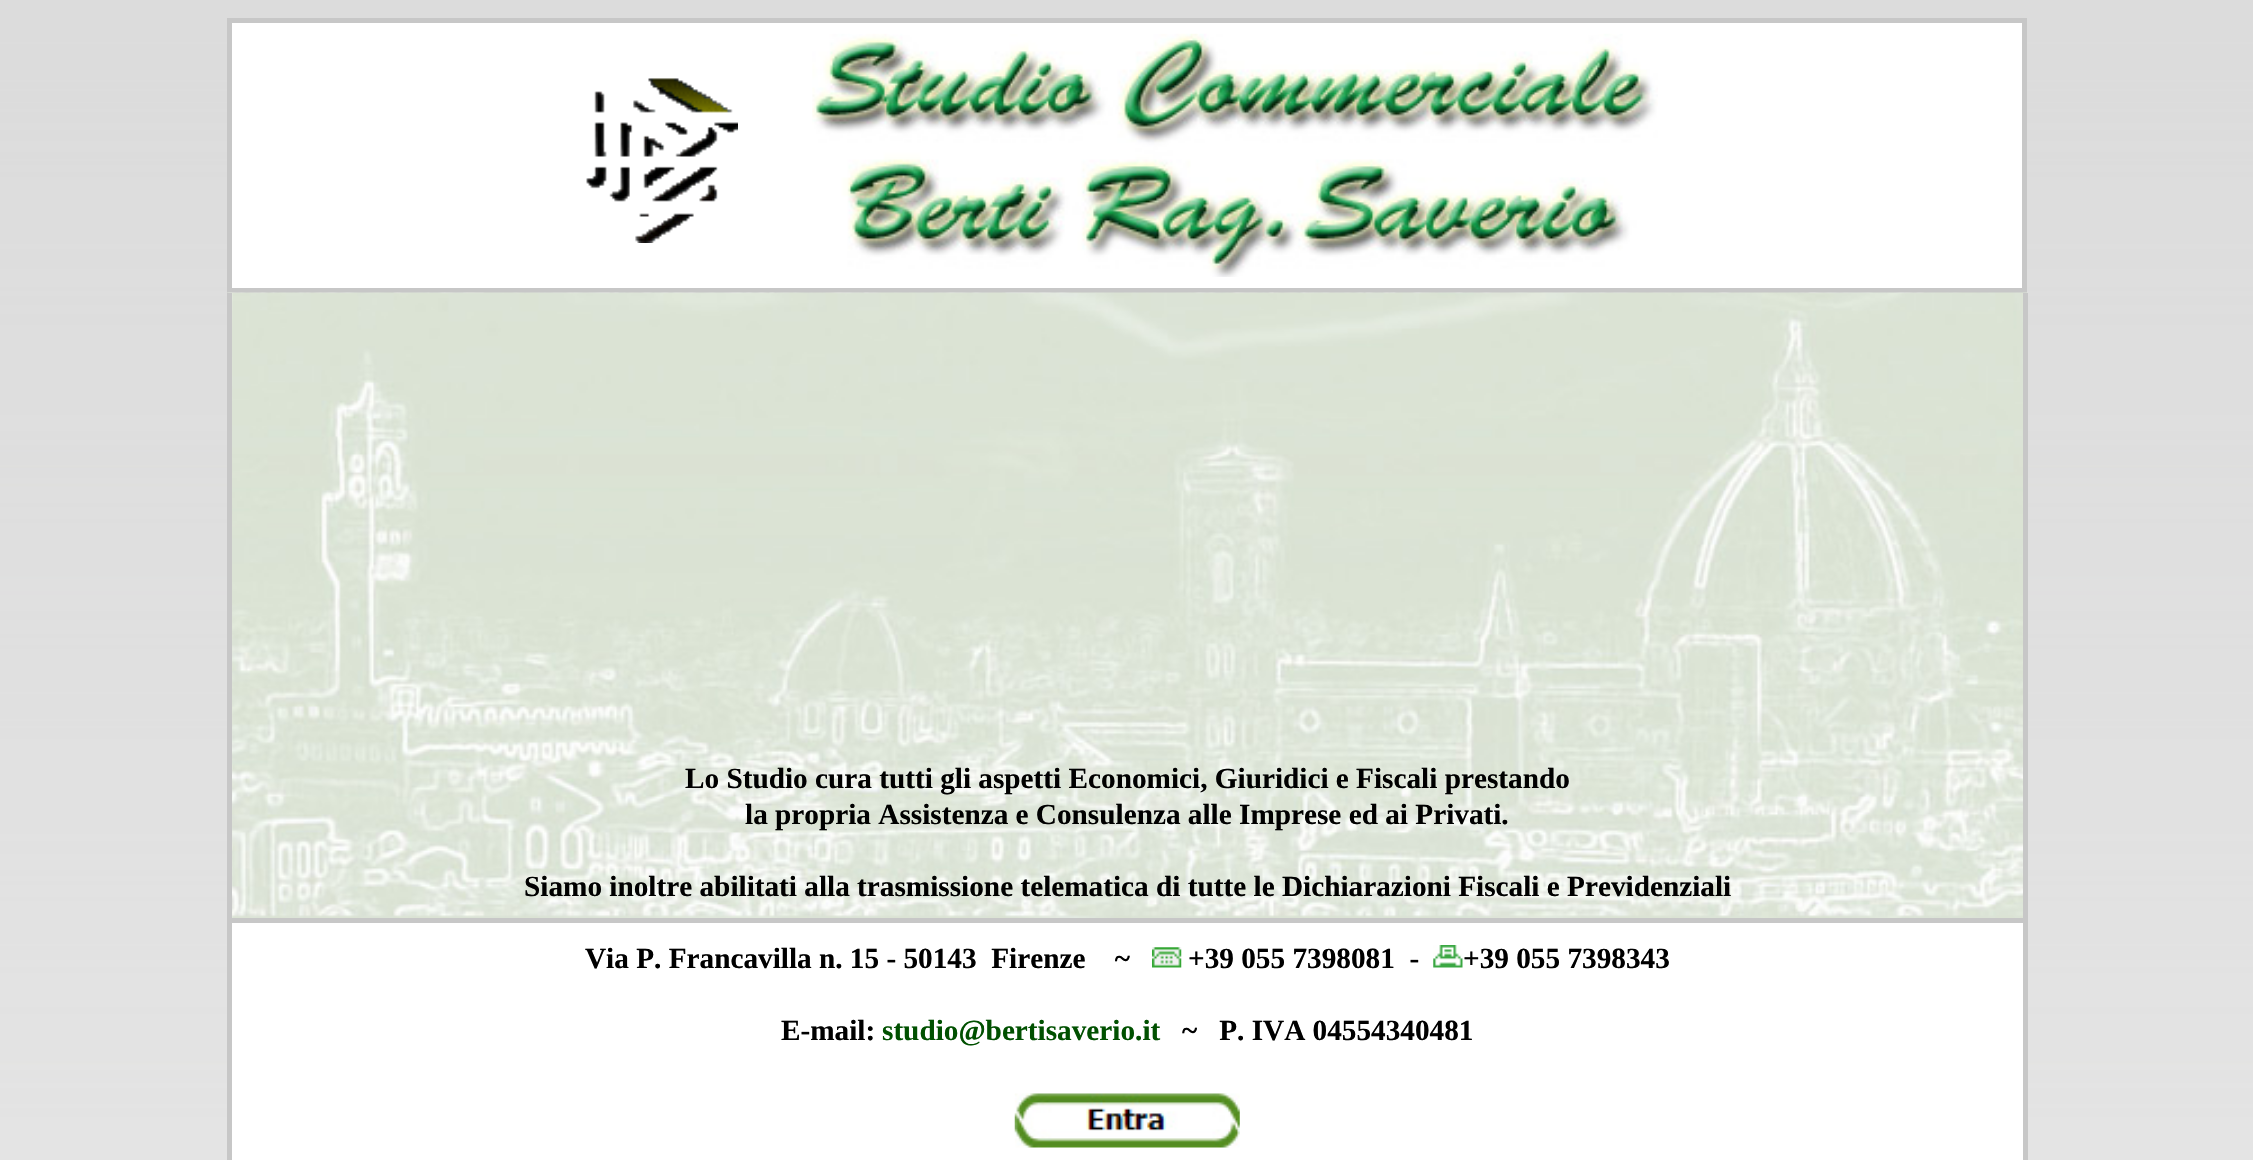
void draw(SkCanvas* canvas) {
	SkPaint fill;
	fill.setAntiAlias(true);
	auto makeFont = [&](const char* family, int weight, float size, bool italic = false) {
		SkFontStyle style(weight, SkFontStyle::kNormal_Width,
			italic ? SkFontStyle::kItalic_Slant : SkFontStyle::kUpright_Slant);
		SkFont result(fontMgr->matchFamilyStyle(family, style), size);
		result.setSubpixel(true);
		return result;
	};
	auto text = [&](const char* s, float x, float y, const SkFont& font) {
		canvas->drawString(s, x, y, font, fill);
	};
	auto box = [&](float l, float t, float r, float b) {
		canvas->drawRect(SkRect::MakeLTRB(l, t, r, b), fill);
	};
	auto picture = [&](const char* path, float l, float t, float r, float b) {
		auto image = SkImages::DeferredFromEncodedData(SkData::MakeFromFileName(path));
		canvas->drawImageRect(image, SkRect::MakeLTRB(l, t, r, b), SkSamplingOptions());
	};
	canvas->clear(0xFFFFFFFF);
	picture("image0.png", 0, 0, 2253, 1160);
	fill.setColor(0xFFFFFFFF);
	box(232, 23, 2023, 1160);
	fill.setStyle(SkPaint::kStroke_Style);
	fill.setStrokeWidth(5);
	fill.setColor(0xFFC7C7C7);
	canvas->drawRect(SkRect::MakeLTRB(229.5f, 20.5f, 2024.5f, 290.5f), fill);
	picture("image1.png", 586, 78, 738, 243);
	picture("image2.png", 812, 33, 1658, 277);
	picture("image3.png", 227, 292, 2028, 918);
	fill.setStyle(SkPaint::kFill_Style);
	box(2023, 293, 2028, 1160);
	box(227, 918, 2027, 923);
	box(227, 293, 232, 1160);
	picture("image4.png", 1152, 947, 1182, 968);
	picture("image5.png", 1433, 945, 1463, 968);
	picture("image6.png", 1014, 1093, 1240, 1148);
	auto font1 = makeFont("Liberation Serif", 700, 29.25f);
	fill.setColor(0xFF000000);
	text("Lo Studio cura tutti gli aspetti Economici, Giuridici e Fiscali prestando", 685, 788, font1);
	text("la propria Assistenza e Consulenza alle Imprese ed ai Privati.", 745, 824, font1);
	text("Siamo inoltre abilitati alla trasmissione telematica di tutte le Dichiarazioni Fiscali e Previdenziali", 524, 896, font1);
	text("Via P. Francavilla n. 15 - 50143  Firenze    ~", 585, 968, font1);
	text("+39 055 7398081  -", 1188, 968, font1);
	text("+39 055 7398343", 1463, 968, font1);
	text("E-mail:", 781, 1040, font1);
	fill.setColor(0xFF005000);
	text("studio@bertisaverio.it", 882, 1040, font1);
	fill.setColor(0xFF000000);
	text("~   P. IVA 04554340481", 1182, 1040, font1);
}
